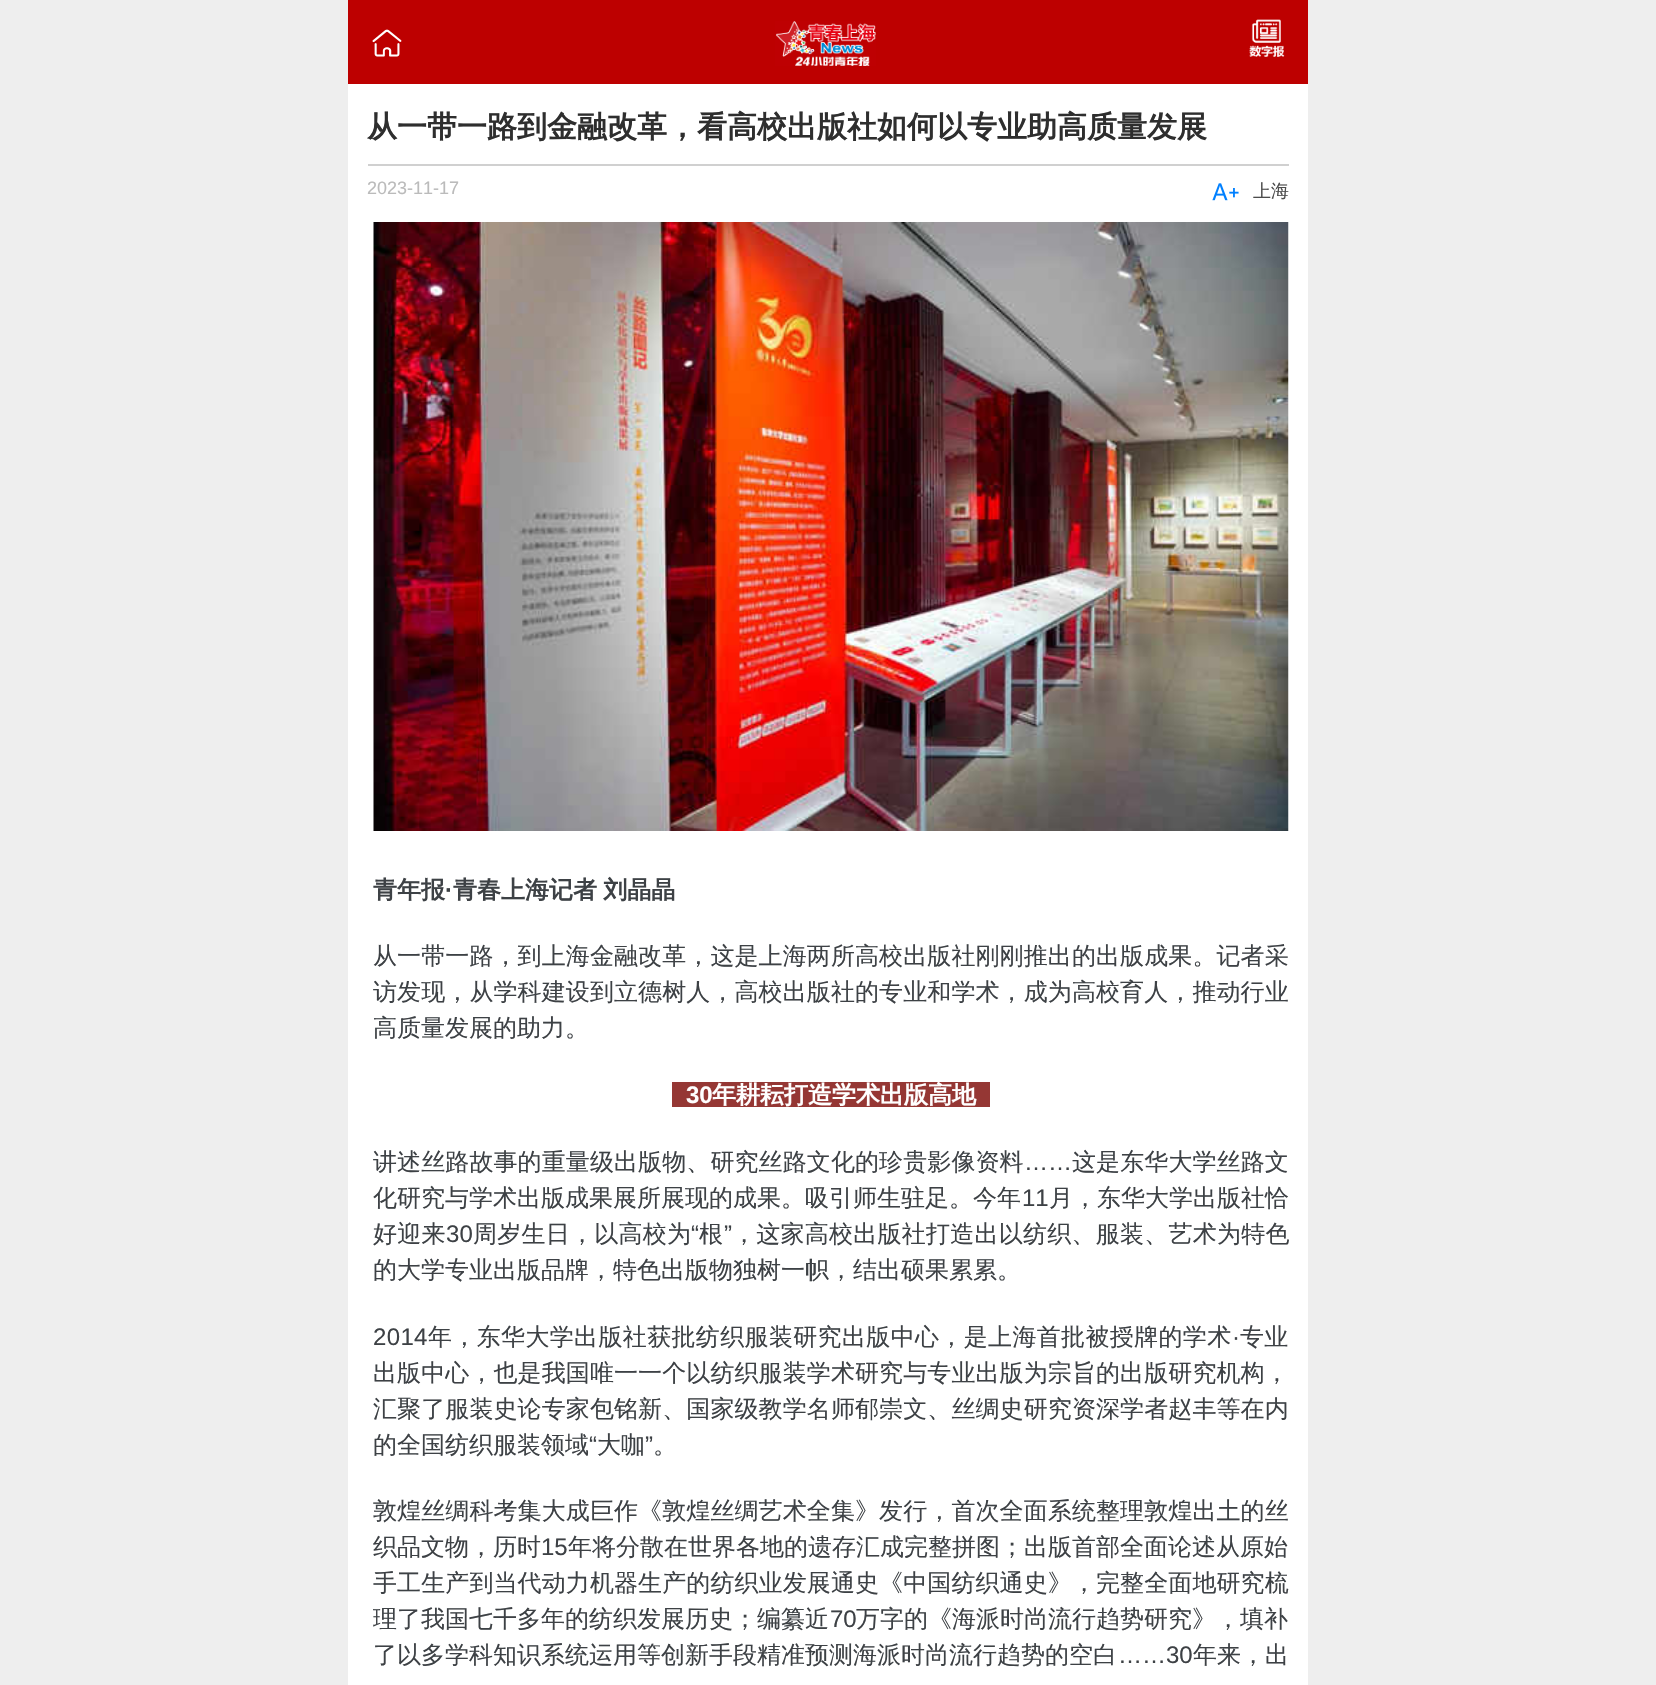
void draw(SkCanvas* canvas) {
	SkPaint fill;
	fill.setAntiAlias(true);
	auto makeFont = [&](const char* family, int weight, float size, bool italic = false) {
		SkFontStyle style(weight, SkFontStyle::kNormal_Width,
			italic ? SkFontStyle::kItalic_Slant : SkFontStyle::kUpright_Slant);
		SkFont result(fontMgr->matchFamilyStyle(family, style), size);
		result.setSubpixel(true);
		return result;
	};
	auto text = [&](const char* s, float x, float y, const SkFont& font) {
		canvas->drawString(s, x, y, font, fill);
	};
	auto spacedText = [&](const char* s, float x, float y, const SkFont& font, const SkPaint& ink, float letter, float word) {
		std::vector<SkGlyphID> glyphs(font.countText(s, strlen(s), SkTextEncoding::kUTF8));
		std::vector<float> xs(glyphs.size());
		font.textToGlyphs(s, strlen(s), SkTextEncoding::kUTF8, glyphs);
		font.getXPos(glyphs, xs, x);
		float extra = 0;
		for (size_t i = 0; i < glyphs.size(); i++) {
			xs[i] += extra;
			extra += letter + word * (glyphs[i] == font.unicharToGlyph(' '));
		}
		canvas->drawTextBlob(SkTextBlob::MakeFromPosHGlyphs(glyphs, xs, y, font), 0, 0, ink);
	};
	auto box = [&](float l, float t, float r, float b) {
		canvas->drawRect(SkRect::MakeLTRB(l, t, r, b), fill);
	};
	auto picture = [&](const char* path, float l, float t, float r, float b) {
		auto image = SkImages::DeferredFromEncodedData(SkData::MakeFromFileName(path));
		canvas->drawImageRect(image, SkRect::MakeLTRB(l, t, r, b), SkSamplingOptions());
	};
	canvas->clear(0xFFEEEEEE);
	fill.setColor(0xFFFFFFFF);
	box(348, 84, 1308, 1685);
	fill.setColor(0xFFBD0000);
	box(348, 0, 1308, 84);
	picture("image0.png", 372, 29, 402, 57);
	picture("image1.png", 775, 21, 876, 66);
	picture("image2.png", 1249, 19, 1285, 57);
	fill.setColor(0xFFD0D0D0);
	box(368, 164, 1289, 166);
	picture("image3.png", 1212, 183, 1239, 201);
	picture("image4.png", 373, 222, 1289, 831);
	fill.setColor(0xFF953734);
	box(672, 1082, 990, 1107);
	auto font1 = makeFont("WenQuanYi Zen Hei", 700, 30);
	fill.setColor(0xFF2E2E2E);
	text("从一带一路到金融改革，看高校出版社如何以专业助高质量发展", 367, 137, font1);
	auto font2 = makeFont("Liberation Sans", 400, 18);
	fill.setColor(0xFFBBBBBB);
	text("2023-11-17", 367, 194, font2);
	auto font3 = makeFont("WenQuanYi Zen Hei", 500, 18);
	fill.setColor(0xFF4C4C4C);
	text("上海", 1253, 197, font3);
	auto font4 = makeFont("WenQuanYi Zen Hei", 700, 24);
	fill.setColor(0xFF3D4145);
	text("青年报", 373, 898, font4);
	auto font5 = makeFont("Liberation Sans", 700, 24);
	text("·", 445, 898, font5);
	spacedText("青春上海记者 刘晶晶", 453, 898, font4, fill, 0, -1);
	auto font6 = makeFont("WenQuanYi Zen Hei", 500, 24);
	spacedText("从一带一路，到上海金融改革，这是上海两所高校出版社刚刚推出的出版成果。记者采", 373, 964, font6, fill, 0.1f, 0);
	spacedText("访发现，从学科建设到立德树人，高校出版社的专业和学术，成为高校育人，推动行业", 373, 1000, font6, fill, 0.1f, 0);
	text("高质量发展的助力。", 373, 1036, font6);
	fill.setColor(0xFFFFFFFF);
	text("30", 686, 1103, font5);
	text("年耕耘打造学术出版高地", 712, 1103, font4);
	fill.setColor(0xFF3D4145);
	spacedText("讲述丝路故事的重量级出版物、研究丝路文化的珍贵影像资料", 373, 1170, font6, fill, 0.1f, 0);
	auto font7 = makeFont("Liberation Sans", 400, 24);
	spacedText("……", 1024, 1170, font7, fill, 0.1f, 0);
	spacedText("这是东华大学丝路文", 1072, 1170, font6, fill, 0.1f, 0);
	text("化研究与学术出版成果展所展现的成果。吸引师生驻足。今年", 373, 1206, font6);
	text("11", 1022, 1206, font7);
	text("月，东华大学出版社恰", 1049, 1206, font6);
	spacedText("好迎来", 373, 1242, font6, fill, 0.25f, 0);
	spacedText("30", 446, 1242, font7, fill, 0.25f, 0);
	spacedText("周岁生日，以高校为", 473, 1242, font6, fill, 0.25f, 0);
	spacedText("“", 691, 1242, font7, fill, 0.25f, 0);
	spacedText("根", 699, 1242, font6, fill, 0.25f, 0);
	spacedText("”", 724, 1242, font7, fill, 0.25f, 0);
	spacedText("，这家高校出版社打造出以纺织、服装、艺术为特色", 732, 1242, font6, fill, 0.25f, 0);
	text("的大学专业出版品牌，特色出版物独树一帜，结出硕果累累。", 373, 1278, font6);
	spacedText("2014", 373, 1345, font7, fill, 0.35f, 0);
	spacedText("年，东华大学出版社获批纺织服装研究出版中心，是上海首批被授牌的学术", 428, 1345, font6, fill, 0.35f, 0);
	spacedText("·", 1232, 1345, font7, fill, 0.35f, 0);
	spacedText("专业", 1240, 1345, font6, fill, 0.35f, 0);
	spacedText("出版中心，也是我国唯一一个以纺织服装学术研究与专业出版为宗旨的出版研究机构，", 373, 1381, font6, fill, 0.1f, 0);
	spacedText("汇聚了服装史论专家包铭新、国家级教学名师郁崇文、丝绸史研究资深学者赵丰等在内", 373, 1417, font6, fill, 0.1f, 0);
	text("的全国纺织服装领域", 373, 1453, font6);
	text("“", 589, 1453, font7);
	text("大咖", 597, 1453, font6);
	text("”", 645, 1453, font7);
	text("。", 653, 1453, font6);
	spacedText("敦煌丝绸科考集大成巨作《敦煌丝绸艺术全集》发行，首次全面系统整理敦煌出土的丝", 373, 1519, font6, fill, 0.1f, 0);
	text("织品文物，历时", 373, 1555, font6);
	text("15", 541, 1555, font7);
	text("年将分散在世界各地的遗存汇成完整拼图；出版首部全面论述从原始", 568, 1555, font6);
	spacedText("手工生产到当代动力机器生产的纺织业发展通史《中国纺织通史》，完整全面地研究梳", 373, 1591, font6, fill, 0.1f, 0);
	text("理了我国七千多年的纺织发展历史；编纂近", 373, 1627, font6);
	text("70", 830, 1627, font7);
	text("万字的《海派时尚流行趋势研究》，填补", 856, 1627, font6);
	text("了以多学科知识系统运用等创新手段精准预测海派时尚流行趋势的空白", 373, 1663, font6);
	text("……30", 1118, 1663, font7);
	text("年来，出", 1193, 1663, font6);
}
